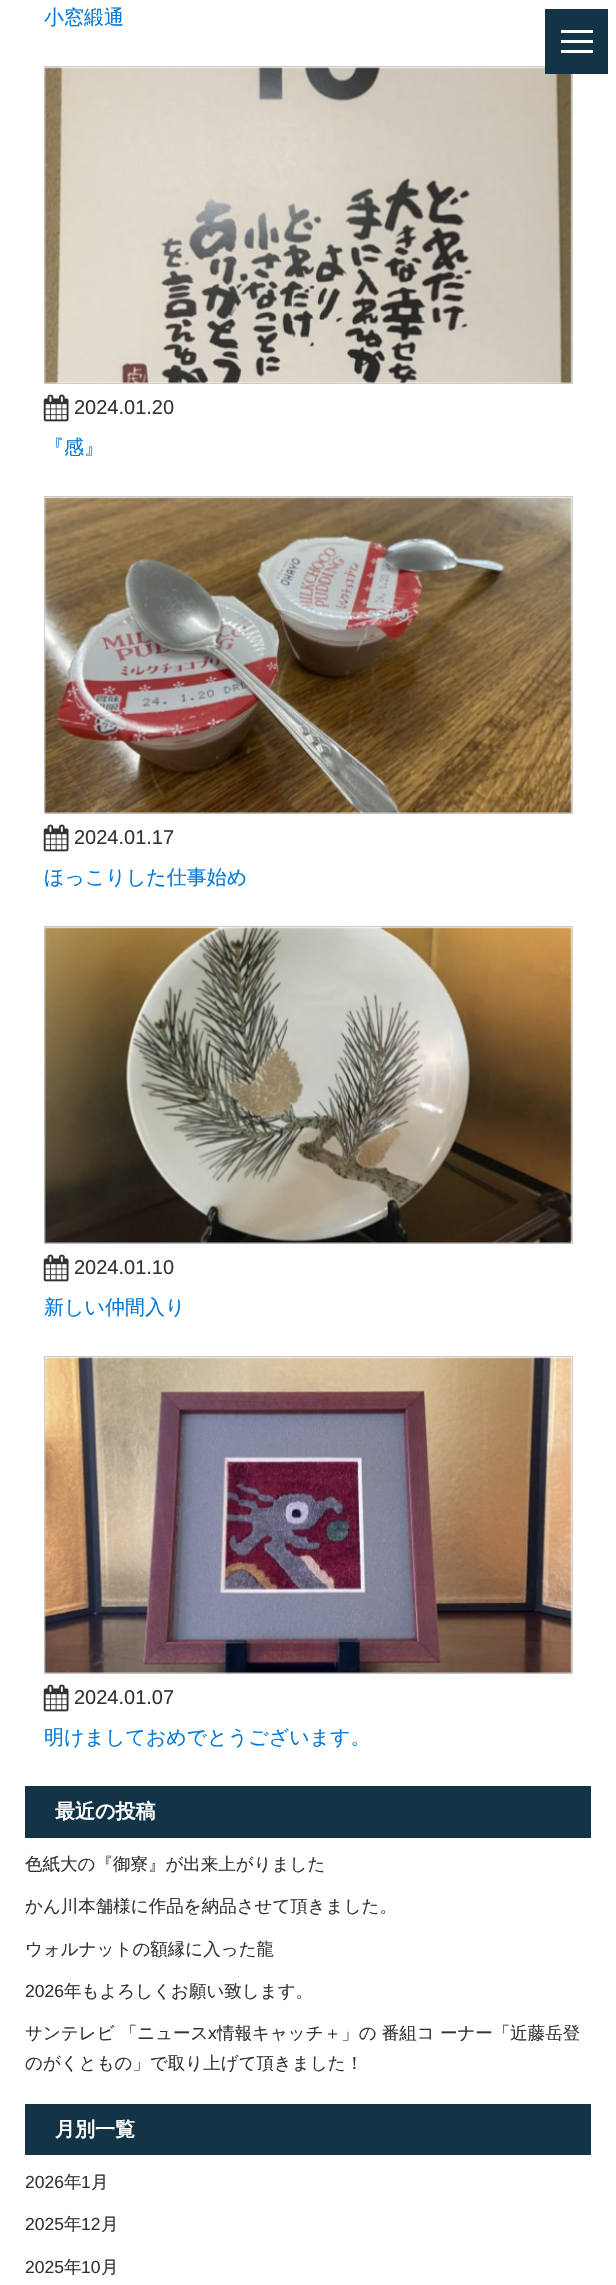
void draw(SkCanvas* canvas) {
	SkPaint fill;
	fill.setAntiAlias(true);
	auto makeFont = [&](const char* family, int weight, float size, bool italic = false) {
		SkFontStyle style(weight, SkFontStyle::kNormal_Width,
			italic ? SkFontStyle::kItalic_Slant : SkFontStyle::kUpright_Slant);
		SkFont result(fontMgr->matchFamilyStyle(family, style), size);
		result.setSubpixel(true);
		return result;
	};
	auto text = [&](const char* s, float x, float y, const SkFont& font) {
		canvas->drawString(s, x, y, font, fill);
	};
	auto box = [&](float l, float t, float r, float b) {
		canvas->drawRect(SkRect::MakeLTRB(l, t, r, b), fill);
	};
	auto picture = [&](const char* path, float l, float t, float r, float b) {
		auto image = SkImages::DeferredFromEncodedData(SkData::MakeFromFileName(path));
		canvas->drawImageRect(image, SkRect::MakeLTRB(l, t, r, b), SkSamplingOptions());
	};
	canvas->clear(0xFFFFFFFF);
	fill.setStyle(SkPaint::kStroke_Style);
	fill.setStrokeWidth(1);
	fill.setColor(0xFFCCCCCC);
	canvas->drawRect(SkRect::MakeLTRB(44.5f, 66.5f, 572.5f, 383.5f), fill);
	picture("image0.png", 44, 67, 572, 384);
	picture("image1.png", 43, 394, 69, 422);
	canvas->drawRect(SkRect::MakeLTRB(44.5f, 496.5f, 572.5f, 813.5f), fill);
	picture("image2.png", 44, 497, 572, 814);
	picture("image1.png", 43, 824, 69, 852);
	canvas->drawRect(SkRect::MakeLTRB(44.5f, 926.5f, 572.5f, 1243.5f), fill);
	picture("image3.png", 44, 927, 572, 1244);
	picture("image1.png", 43, 1254, 69, 1282);
	canvas->drawRect(SkRect::MakeLTRB(44.5f, 1356.5f, 572.5f, 1673.5f), fill);
	picture("image4.png", 44, 1357, 572, 1674);
	picture("image1.png", 43, 1684, 69, 1712);
	fill.setStyle(SkPaint::kFill_Style);
	fill.setColor(0xFF133447);
	box(25, 1786, 591, 1838);
	box(25, 2104, 591, 2155);
	box(545, 9, 608, 74);
	fill.setColor(0xFFFFFFFF);
	box(561, 40, 593, 43);
	box(561, 30, 593, 33);
	box(561, 50, 593, 53);
	auto font1 = makeFont("WenQuanYi Zen Hei", 500, 20);
	fill.setColor(0xFF0078D7);
	text("小窓緞通", 44, 24, font1);
	auto font2 = makeFont("Liberation Sans", 400, 20);
	fill.setColor(0xFF333333);
	text("2024.01.20", 74, 414, font2);
	fill.setColor(0xFF0078D7);
	text("『感』", 44, 454, font1);
	fill.setColor(0xFF333333);
	text("2024.01.17", 74, 844, font2);
	fill.setColor(0xFF0078D7);
	text("ほっこりした仕事始め", 44, 884, font1);
	fill.setColor(0xFF333333);
	text("2024.01.10", 74, 1274, font2);
	fill.setColor(0xFF0078D7);
	text("新しい仲間入り", 44, 1314, font1);
	fill.setColor(0xFF333333);
	text("2024.01.07", 74, 1704, font2);
	fill.setColor(0xFF0078D7);
	text("明けましておめでとうございます。", 44, 1744, font1);
	auto font3 = makeFont("WenQuanYi Zen Hei", 700, 20);
	fill.setColor(0xFFFFFFFF);
	text("最近の投稿", 55, 1818, font3);
	auto font4 = makeFont("WenQuanYi Zen Hei", 500, 17.5f);
	fill.setColor(0xFF333333);
	text("色紙大の『御寮』が出来上がりました", 25, 1870, font4);
	text("かん川本舗様に作品を納品させて頂きました。", 25, 1912, font4);
	text("ウォルナットの額縁に入った龍", 25, 1955, font4);
	auto font5 = makeFont("Liberation Sans", 400, 17.5f);
	text("2026", 25, 1997, font5);
	text("年もよろしくお願い致します。", 64, 1997, font4);
	text("サンテレビ 「ニュース", 25, 2039, font4);
	text("x", 208, 2039, font5);
	text("情報キャッチ＋」の 番組コ ーナー「近藤岳登", 217, 2039, font4);
	text("のがくともの」で取り上げて頂きました！", 25, 2069, font4);
	fill.setColor(0xFFFFFFFF);
	text("月別一覧", 55, 2136, font3);
	fill.setColor(0xFF333333);
	text("2026", 25, 2188, font5);
	text("年", 64, 2188, font4);
	text("1", 81, 2188, font5);
	text("月", 91, 2188, font4);
	text("2025", 25, 2230, font5);
	text("年", 64, 2230, font4);
	text("12", 81, 2230, font5);
	text("月", 101, 2230, font4);
	text("2025", 25, 2273, font5);
	text("年", 64, 2273, font4);
	text("10", 81, 2273, font5);
	text("月", 101, 2273, font4);
}
